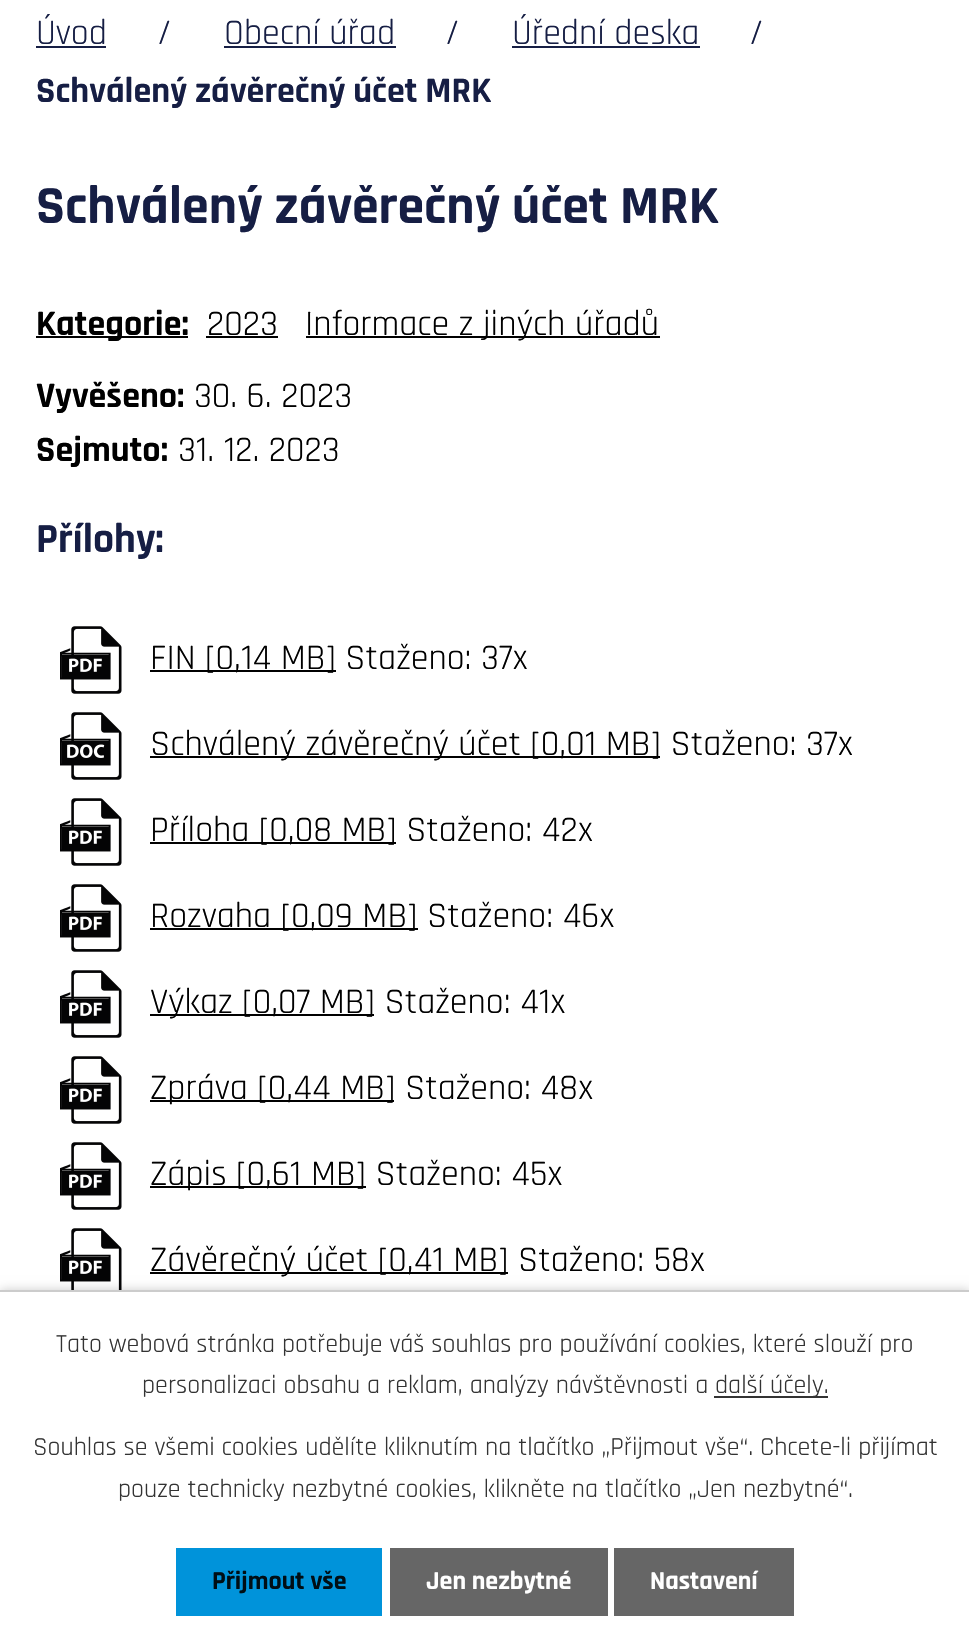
void draw(SkCanvas* canvas) {
	SkPaint fill;
	fill.setAntiAlias(true);
	auto makeFont = [&](const char* family, int weight, float size, bool italic = false) {
		SkFontStyle style(weight, SkFontStyle::kNormal_Width,
			italic ? SkFontStyle::kItalic_Slant : SkFontStyle::kUpright_Slant);
		SkFont result(fontMgr->matchFamilyStyle(family, style), size);
		result.setSubpixel(true);
		return result;
	};
	auto text = [&](const char* s, float x, float y, const SkFont& font) {
		canvas->drawString(s, x, y, font, fill);
	};
	auto box = [&](float l, float t, float r, float b) {
		canvas->drawRect(SkRect::MakeLTRB(l, t, r, b), fill);
	};
	auto picture = [&](const char* path, float l, float t, float r, float b) {
		auto image = SkImages::DeferredFromEncodedData(SkData::MakeFromFileName(path));
		canvas->drawImageRect(image, SkRect::MakeLTRB(l, t, r, b), SkSamplingOptions());
	};
	canvas->clear(0xFFFFFFFF);
	fill.setColor(0xFF161E44);
	box(36, 46, 106, 48);
	box(224, 46, 396, 48);
	box(512, 46, 700, 48);
	fill.setColor(0xFF000000);
	box(36, 336, 188, 338);
	box(206, 336, 278, 338);
	box(306, 336, 660, 338);
	picture("image0.png", 60, 626, 122, 694);
	box(150, 670, 336, 672);
	picture("image1.png", 60, 712, 122, 780);
	box(150, 756, 660, 758);
	picture("image0.png", 60, 798, 122, 866);
	box(150, 842, 396, 844);
	picture("image0.png", 60, 884, 122, 952);
	box(150, 928, 418, 930);
	picture("image0.png", 60, 970, 122, 1038);
	box(150, 1014, 374, 1016);
	picture("image0.png", 60, 1056, 122, 1124);
	box(150, 1100, 394, 1102);
	picture("image0.png", 60, 1142, 122, 1210);
	box(150, 1186, 366, 1188);
	picture("image2.png", 60, 1228, 122, 1290);
	box(150, 1272, 508, 1274);
	fill.setColor(0x33000000);
	fill.setMaskFilter(SkMaskFilter::MakeBlur(kNormal_SkBlurStyle, 5));
	canvas->drawRect(SkRect::MakeLTRB(0, 1290, 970, 1646), fill);
	fill.setMaskFilter(nullptr);
	fill.setColor(0xFFFFFFFF);
	box(0, 1292, 969, 1646);
	fill.setColor(0xFFCCCCCC);
	box(0, 1290, 969, 1292);
	fill.setColor(0xFF333333);
	box(714, 1396, 828, 1398);
	fill.setColor(0xFF0093DA);
	box(176, 1548, 382, 1616);
	fill.setColor(0xFF666666);
	box(390, 1548, 608, 1616);
	box(614, 1548, 794, 1616);
	auto font1 = makeFont("Rajdhani", 400, 36);
	fill.setColor(0xFF161E44);
	text("Úvod", 36, 44, font1);
	text("/", 157, 44, font1);
	text("Obecní úřad", 224, 44, font1);
	text("/", 445, 44, font1);
	text("Úřední deska", 512, 44, font1);
	text("/", 749, 44, font1);
	auto font2 = makeFont("Rajdhani", 700, 36);
	text("Schválený závěrečný účet MRK", 36, 102, font2);
	auto font3 = makeFont("Rajdhani", 700, 54);
	text("Schválený závěrečný účet MRK", 36, 223, font3);
	fill.setColor(0xFF000000);
	text("Kategorie:", 36, 335, font2);
	text("2023", 207, 335, font1);
	text("Informace z jiných úřadů", 305, 335, font1);
	text("Vyvěšeno:", 36, 407, font2);
	text("30. 6. 2023", 194, 407, font1);
	text("Sejmuto:", 36, 461, font2);
	text("31. 12. 2023", 178, 461, font1);
	auto font4 = makeFont("Rajdhani", 700, 41.5f);
	fill.setColor(0xFF161E44);
	text("Přílohy:", 36, 552, font4);
	fill.setColor(0xFF000000);
	text("FIN [0,14 MB] Staženo: 37x", 150, 669, font1);
	text("Schválený závěrečný účet [0,01 MB] Staženo: 37x", 150, 755, font1);
	text("Příloha [0,08 MB] Staženo: 42x", 150, 841, font1);
	text("Rozvaha [0,09 MB] Staženo: 46x", 150, 927, font1);
	text("Výkaz [0,07 MB] Staženo: 41x", 150, 1013, font1);
	text("Zpráva [0,44 MB] Staženo: 48x", 150, 1099, font1);
	text("Zápis [0,61 MB] Staženo: 45x", 150, 1185, font1);
	text("Závěrečný účet [0,41 MB] Staženo: 58x", 150, 1271, font1);
	auto font5 = makeFont("Rajdhani", 400, 26);
	fill.setColor(0xFF333333);
	text("Tato webová stránka potřebuje váš souhlas pro používání cookies, které slouží pro", 56, 1352, font5);
	text("personalizaci obsahu a reklam, analýzy návštěvnosti a", 142, 1393, font5);
	text("další účely.", 715, 1393, font5);
	text("Souhlas se všemi cookies udělíte kliknutím na tlačítko „Přijmout vše“. Chcete-li přijímat", 33, 1455, font5);
	text("pouze technicky nezbytné cookies, klikněte na tlačítko „Jen nezbytné“.", 118, 1497, font5);
	auto font6 = makeFont("Rajdhani", 700, 26);
	fill.setColor(0xFF000E15);
	text("Přijmout vše", 212, 1589, font6);
	fill.setColor(0xFFFFFFFF);
	text("Jen nezbytné", 426, 1589, font6);
	text("Nastavení", 650, 1589, font6);
}
